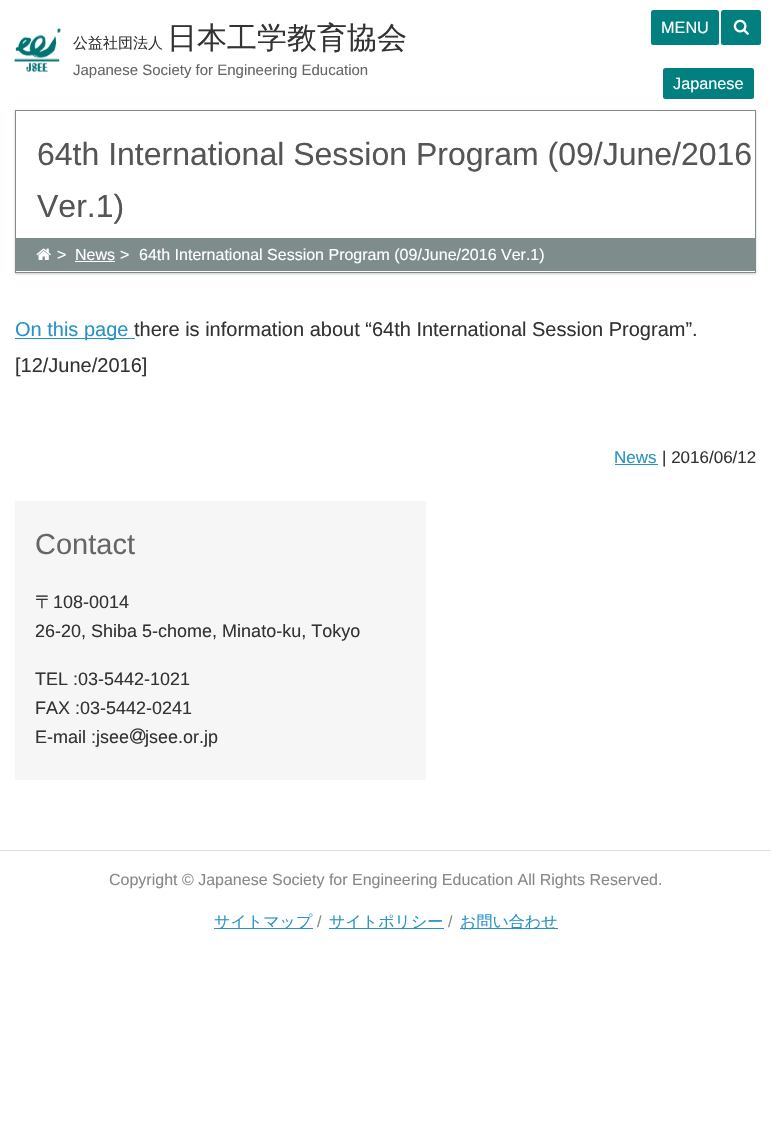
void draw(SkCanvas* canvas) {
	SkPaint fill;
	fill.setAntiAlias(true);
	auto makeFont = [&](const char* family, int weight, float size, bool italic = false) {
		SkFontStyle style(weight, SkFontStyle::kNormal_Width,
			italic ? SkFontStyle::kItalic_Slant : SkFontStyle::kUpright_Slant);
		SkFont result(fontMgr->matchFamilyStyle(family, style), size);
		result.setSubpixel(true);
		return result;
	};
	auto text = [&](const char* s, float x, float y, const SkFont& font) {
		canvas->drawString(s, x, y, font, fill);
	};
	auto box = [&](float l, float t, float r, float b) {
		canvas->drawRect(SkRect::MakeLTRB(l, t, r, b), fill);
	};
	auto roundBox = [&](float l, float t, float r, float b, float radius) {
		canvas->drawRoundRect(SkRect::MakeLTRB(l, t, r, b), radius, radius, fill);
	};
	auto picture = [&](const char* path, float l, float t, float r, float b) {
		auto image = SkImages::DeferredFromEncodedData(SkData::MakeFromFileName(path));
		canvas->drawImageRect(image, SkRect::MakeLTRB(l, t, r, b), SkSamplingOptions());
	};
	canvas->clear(0xFFFFFFFF);
	fill.setColor(0xFF02807F);
	roundBox(651, 10, 719, 45, 2.5f);
	roundBox(721, 10, 761, 45, 2.5f);
	picture("image0.png", 733, 19, 749, 35);
	picture("image1.png", 14, 28, 61, 72);
	roundBox(663, 68, 754, 99, 2.5f);
	fill.setColor(0x33000000);
	fill.setMaskFilter(SkMaskFilter::MakeBlur(kNormal_SkBlurStyle, 1));
	canvas->drawRect(SkRect::MakeLTRB(15, 111, 756, 274), fill);
	fill.setMaskFilter(nullptr);
	fill.setColor(0xFFFFFFFF);
	canvas->drawRect(SkRect::MakeLTRB(15.5f, 110.5f, 755.5f, 272.5f), fill);
	fill.setStyle(SkPaint::kStroke_Style);
	fill.setStrokeWidth(1);
	fill.setColor(0xFF7E8C8C);
	canvas->drawRect(SkRect::MakeLTRB(15.5f, 110.5f, 755.5f, 272.5f), fill);
	fill.setStyle(SkPaint::kFill_Style);
	box(16, 238, 755, 271);
	picture("image2.png", 36, 248, 51, 260);
	fill.setColor(0xFFFFFFFF);
	box(75, 261, 115, 262);
	fill.setColor(0xFF2792C3);
	box(15, 338, 135, 339);
	box(615, 464, 658, 465);
	fill.setColor(0xFFF6F6F6);
	box(15, 501, 426, 780);
	picture("image3.png", 130, 728, 146, 744);
	fill.setColor(0xFFDDDDDD);
	box(0, 850, 771, 851);
	fill.setColor(0xFF2792C3);
	box(214, 928, 313, 929);
	box(329, 928, 444, 929);
	box(460, 928, 558, 929);
	auto font1 = makeFont("Liberation Sans", 400, 16.25f);
	fill.setColor(0xFFFFFFFF);
	text("MENU", 661, 33, font1);
	auto font2 = makeFont("WenQuanYi Zen Hei", 500, 15);
	fill.setColor(0xFF333333);
	text("公益社団法人", 73, 48, font2);
	auto font3 = makeFont("WenQuanYi Zen Hei", 500, 30);
	text("日本工学教育協会", 167, 48, font3);
	auto font4 = makeFont("Liberation Sans", 400, 15);
	fill.setColor(0xFF666666);
	text("Japanese Society for Engineering Education", 73, 75, font4);
	fill.setColor(0xFFFFFFFF);
	text("Japanese", 673, 89, font1);
	auto font5 = makeFont("Liberation Sans", 400, 32);
	fill.setColor(0xFF555555);
	text("64th International Session Program (09/June/2016", 37, 165, font5);
	text("Ver.1)", 37, 217, font5);
	auto font6 = makeFont("Liberation Sans", 400, 16);
	fill.setColor(0xFFFFFFFF);
	text(">", 57, 260, font6);
	text("News", 75, 260, font6);
	text(">", 120, 260, font6);
	text("64th International Session Program (09/June/2016 Ver.1)", 139, 260, font6);
	auto font7 = makeFont("Liberation Sans", 400, 20);
	fill.setColor(0xFF2792C3);
	text("On this page", 15, 336, font7);
	fill.setColor(0xFF333333);
	text("there is information about “64th International Session Program”.", 134, 336, font7);
	text("[12/June/2016]", 15, 372, font7);
	auto font8 = makeFont("Liberation Sans", 400, 17);
	fill.setColor(0xFF2792C3);
	text("News", 614, 463, font8);
	fill.setColor(0xFF333333);
	text("| 2016/06/12", 662, 463, font8);
	auto font9 = makeFont("Liberation Sans", 400, 29);
	fill.setColor(0xFF666666);
	text("Contact", 35, 554, font9);
	auto font10 = makeFont("WenQuanYi Zen Hei", 500, 18);
	fill.setColor(0xFF333333);
	text("〒", 35, 608, font10);
	auto font11 = makeFont("Liberation Sans", 400, 18);
	text("108-0014", 53, 608, font11);
	text("26-20, Shiba 5-chome, Minato-ku, Tokyo", 35, 637, font11);
	text("TEL :03-5442-1021", 35, 685, font11);
	text("FAX :03-5442-0241", 35, 714, font11);
	text("E-mail :jsee", 35, 743, font11);
	text("jsee.or.jp", 145, 743, font11);
	fill.setColor(0xFF888888);
	text("Copyright © Japanese Society for Engineering Education All Rights Reserved.", 109, 885, font6);
	auto font12 = makeFont("WenQuanYi Zen Hei", 500, 16);
	fill.setColor(0xFF2792C3);
	text("サイトマップ", 214, 927, font12);
	fill.setColor(0xFF888888);
	text("/", 317, 927, font6);
	fill.setColor(0xFF2792C3);
	text("サイトポリシー", 329, 927, font12);
	fill.setColor(0xFF888888);
	text("/", 448, 927, font6);
	fill.setColor(0xFF2792C3);
	text("お問い合わせ", 460, 927, font12);
}
